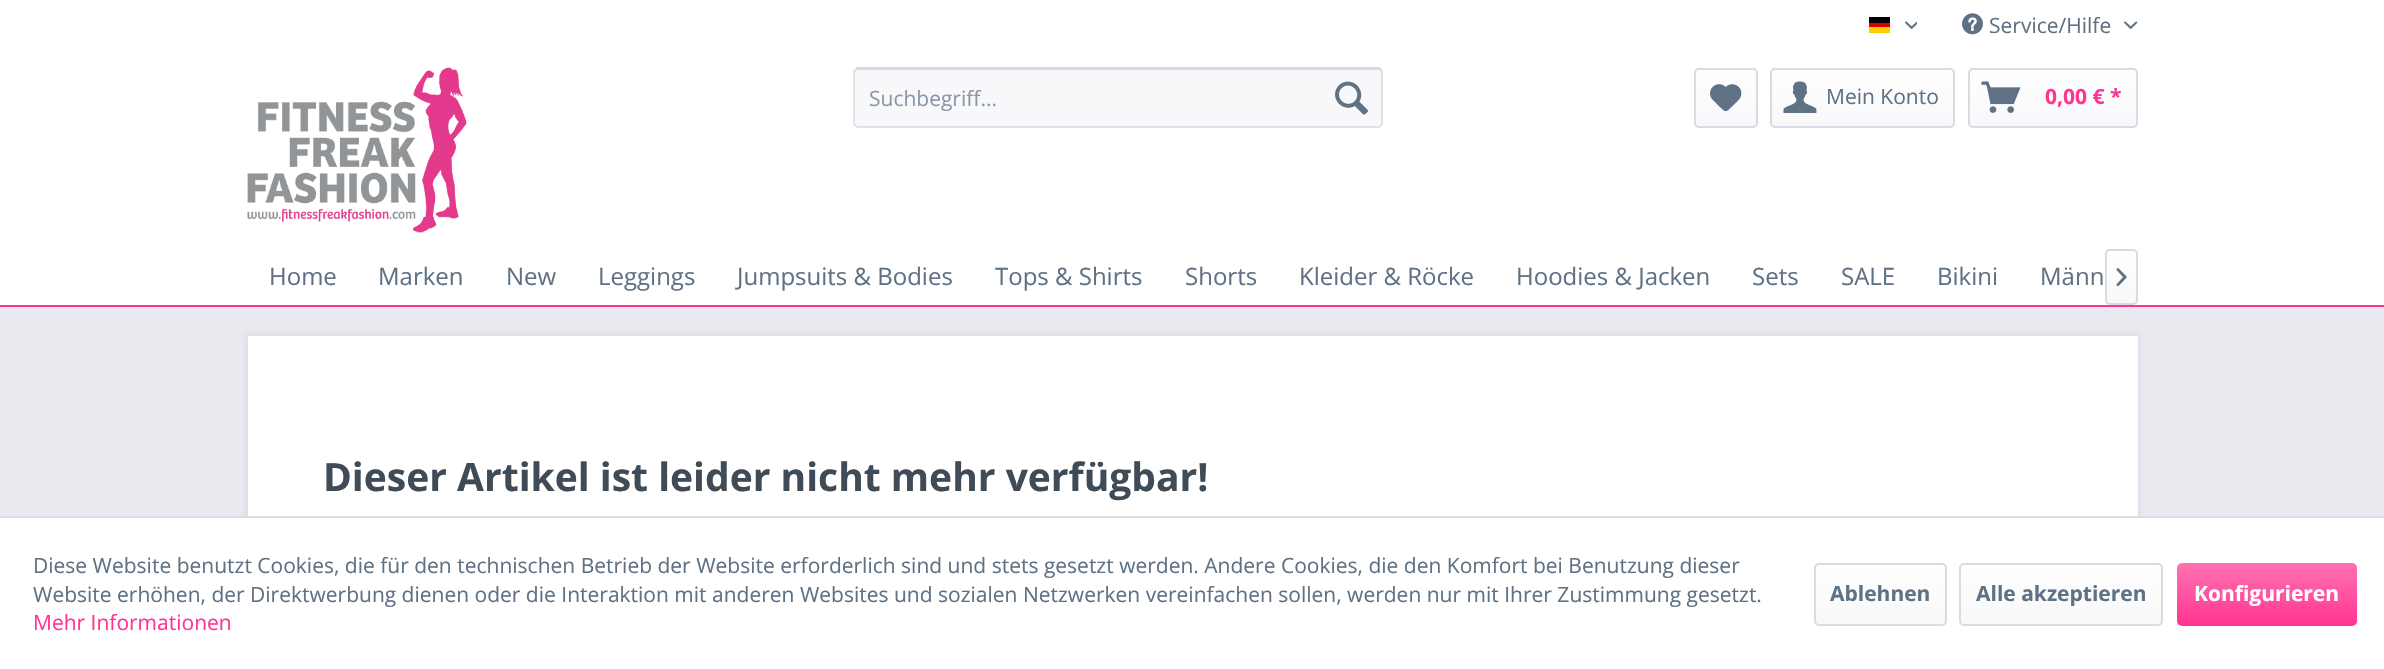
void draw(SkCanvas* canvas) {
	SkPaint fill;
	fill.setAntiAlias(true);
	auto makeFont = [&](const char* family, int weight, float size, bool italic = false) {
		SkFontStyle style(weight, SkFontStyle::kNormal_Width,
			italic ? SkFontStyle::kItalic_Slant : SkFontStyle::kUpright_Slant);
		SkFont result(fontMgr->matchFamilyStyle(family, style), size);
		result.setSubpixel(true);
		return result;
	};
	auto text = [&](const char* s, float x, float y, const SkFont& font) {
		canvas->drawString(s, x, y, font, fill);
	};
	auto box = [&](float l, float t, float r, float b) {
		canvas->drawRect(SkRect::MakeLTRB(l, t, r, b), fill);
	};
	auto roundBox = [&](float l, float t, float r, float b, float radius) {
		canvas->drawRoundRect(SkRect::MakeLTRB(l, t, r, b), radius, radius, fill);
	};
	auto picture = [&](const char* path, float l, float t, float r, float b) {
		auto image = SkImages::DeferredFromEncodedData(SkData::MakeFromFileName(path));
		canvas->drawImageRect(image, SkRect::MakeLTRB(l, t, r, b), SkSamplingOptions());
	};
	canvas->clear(0xFFE9E9F0);
	fill.setColor(0xFFFFFFFF);
	box(0, 0, 2384, 305);
	fill.setColor(0xFF000000);
	box(1869, 17, 1890, 23);
	fill.setColor(0xFFDD0000);
	box(1869, 23, 1890, 27);
	fill.setColor(0xFFFFCE00);
	box(1869, 27, 1890, 33);
	picture("image0.png", 1905, 21, 1917, 29);
	picture("image1.png", 1962, 13, 1983, 35);
	picture("image2.png", 2124, 21, 2138, 29);
	picture("image3.png", 247, 67, 467, 233);
	fill.setColor(0xFFF8F8FA);
	roundBox(854, 68, 1383, 128, 5);
	fill.setColor(0xFFDADAE5);
	canvas->drawPath(SkPathBuilder().moveTo(858, 70).lineTo(1378, 70).cubicTo(1380, 70, 1382, 72, 1382, 74).lineTo(1381, 70).lineTo(1379, 69).lineTo(858, 69).cubicTo(855, 69, 855, 72, 855, 74).cubicTo(855, 72, 856, 70, 858, 70).close().detach(), fill);
	fill.setStyle(SkPaint::kStroke_Style);
	fill.setStrokeWidth(1.5f);
	fill.setColor(0xFFCBCBDB);
	canvas->drawPath(SkPathBuilder().moveTo(855.5f, 69.5f).cubicTo(856, 68.5f, 857, 68, 858, 68).lineTo(1378.5f, 68).cubicTo(1379.5f, 68, 1380.5f, 68.5f, 1381, 69.5f).detach(), fill);
	fill.setColor(0xFFDADAE5);
	canvas->drawPath(SkPathBuilder().moveTo(1381, 69.5f).cubicTo(1382, 70, 1382, 71, 1382, 72).lineTo(1382, 123).cubicTo(1382, 124, 1382, 125, 1381, 125.5f).cubicTo(1380.5f, 126.5f, 1379.5f, 127, 1378.5f, 127).lineTo(858, 127).cubicTo(857, 127, 856, 126.5f, 855.5f, 125.5f).cubicTo(854.5f, 125, 854, 124, 854, 123).lineTo(854, 72).cubicTo(854, 71, 854.5f, 70, 855.5f, 69.5f).detach(), fill);
	picture("image4.png", 1335, 81, 1368, 115);
	fill.setStyle(SkPaint::kFill_Style);
	{
		const SkColor colors[] = {0xFFFFFFFF, 0xFFF8F8FA};
		const float stops[] = {0, 1};
		const SkPoint ends[] = {{1726, 69}, {1726, 126}};
		fill.setShader(SkGradientShader::MakeLinear(ends, colors, stops, 2, SkTileMode::kClamp));
		fill.setAlpha(255);
	}
	roundBox(1695, 69, 1757, 126, 3);
	fill.setStyle(SkPaint::kStroke_Style);
	fill.setStrokeWidth(2);
	fill.setShader(nullptr);
	fill.setColor(0xFFDADAE5);
	canvas->drawRoundRect(SkRect::MakeLTRB(1695, 69, 1757, 127), 4, 4, fill);
	picture("image5.png", 1710, 84, 1742, 112);
	fill.setStyle(SkPaint::kFill_Style);
	{
		const SkColor colors[] = {0xFFFFFFFF, 0xFFF8F8FA};
		const float stops[] = {0, 1};
		const SkPoint ends[] = {{1862, 69}, {1862, 126}};
		fill.setShader(SkGradientShader::MakeLinear(ends, colors, stops, 2, SkTileMode::kClamp));
		fill.setAlpha(255);
	}
	roundBox(1772, 69, 1953, 126, 3);
	fill.setStyle(SkPaint::kStroke_Style);
	fill.setShader(nullptr);
	fill.setColor(0xFFDADAE5);
	canvas->drawRoundRect(SkRect::MakeLTRB(1771, 69, 1954, 127), 4, 4, fill);
	picture("image6.png", 1783, 81, 1817, 113);
	fill.setStyle(SkPaint::kFill_Style);
	{
		const SkColor colors[] = {0xFFFFFFFF, 0xFFF8F8FA};
		const float stops[] = {0, 1};
		const SkPoint ends[] = {{2053, 69}, {2053, 126}};
		fill.setShader(SkGradientShader::MakeLinear(ends, colors, stops, 2, SkTileMode::kClamp));
		fill.setAlpha(255);
	}
	roundBox(1970, 69, 2136, 126, 3);
	fill.setStyle(SkPaint::kStroke_Style);
	fill.setShader(nullptr);
	fill.setColor(0xFFDADAE5);
	canvas->drawRoundRect(SkRect::MakeLTRB(1969, 69, 2137, 127), 4, 4, fill);
	picture("image7.png", 1981, 81, 2021, 113);
	fill.setStyle(SkPaint::kFill_Style);
	fill.setColor(0xFFFF3590);
	box(0, 305, 2384, 307);
	{
		const SkColor colors[] = {0xFFFFFFFF, 0xFFF8F8FA};
		const float stops[] = {0, 1};
		const SkPoint ends[] = {{2121, 251}, {2121, 303}};
		fill.setShader(SkGradientShader::MakeLinear(ends, colors, stops, 2, SkTileMode::kClamp));
		fill.setAlpha(255);
	}
	roundBox(2106, 251, 2136, 303, 3);
	fill.setStyle(SkPaint::kStroke_Style);
	fill.setShader(nullptr);
	fill.setColor(0xFFDADAE5);
	canvas->drawRoundRect(SkRect::MakeLTRB(2106, 250, 2137, 304), 4, 4, fill);
	picture("image8.png", 2116, 268, 2127, 287);
	fill.setStyle(SkPaint::kFill_Style);
	fill.setMaskFilter(SkMaskFilter::MakeBlur(kNormal_SkBlurStyle, 3));
	canvas->drawRect(SkRect::MakeLTRB(246, 335, 2139, 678), fill);
	fill.setMaskFilter(nullptr);
	fill.setColor(0xFFFFFFFF);
	box(248, 336, 2138, 516);
	box(0, 518, 2384, 669);
	fill.setColor(0xFFDADAE5);
	box(0, 516, 2384, 518);
	{
		const SkColor colors[] = {0xFFFFFFFF, 0xFFF8F8FA};
		const float stops[] = {0, 1};
		const SkPoint ends[] = {{1880, 564}, {1880, 624}};
		fill.setShader(SkGradientShader::MakeLinear(ends, colors, stops, 2, SkTileMode::kClamp));
		fill.setAlpha(255);
	}
	roundBox(1815, 564, 1946, 624, 3);
	fill.setStyle(SkPaint::kStroke_Style);
	fill.setShader(nullptr);
	fill.setColor(0xFFDADAE5);
	canvas->drawRoundRect(SkRect::MakeLTRB(1815, 564, 1946, 625), 4, 4, fill);
	fill.setStyle(SkPaint::kFill_Style);
	{
		const SkColor colors[] = {0xFFFFFFFF, 0xFFF8F8FA};
		const float stops[] = {0, 1};
		const SkPoint ends[] = {{2061, 564}, {2061, 624}};
		fill.setShader(SkGradientShader::MakeLinear(ends, colors, stops, 2, SkTileMode::kClamp));
		fill.setAlpha(255);
	}
	roundBox(1961, 564, 2162, 624, 3);
	fill.setStyle(SkPaint::kStroke_Style);
	fill.setShader(nullptr);
	fill.setColor(0xFFDADAE5);
	canvas->drawRoundRect(SkRect::MakeLTRB(1960, 564, 2162, 625), 4, 4, fill);
	fill.setStyle(SkPaint::kFill_Style);
	{
		const SkColor colors[] = {0xFFFF72B2, 0xFFFF3590};
		const float stops[] = {0, 1};
		const SkPoint ends[] = {{2267, 563}, {2267, 626}};
		fill.setShader(SkGradientShader::MakeLinear(ends, colors, stops, 2, SkTileMode::kClamp));
		fill.setAlpha(255);
	}
	roundBox(2177, 563, 2357, 626, 5);
	auto font1 = makeFont("Open Sans", 400, 21);
	fill.setShader(nullptr);
	fill.setColor(0xFF5F7285);
	text("Service/Hilfe", 1989, 33, font1);
	fill.setColor(0xFF8798A9);
	text("Suchbegriff...", 869, 106, font1);
	fill.setColor(0xFF5F7285);
	text("Mein Konto", 1826, 104, font1);
	auto font2 = makeFont("Open Sans", 700, 21);
	fill.setColor(0xFFFF3590);
	text("0,00 € *", 2045, 104, font2);
	auto font3 = makeFont("Open Sans", 400, 24);
	fill.setColor(0xFF5F7285);
	text("Home", 269, 285, font3);
	text("Marken", 378, 285, font3);
	text("New", 506, 285, font3);
	text("Leggings", 598, 285, font3);
	text("Jumpsuits & Bodies", 737, 285, font3);
	text("Tops & Shirts", 995, 285, font3);
	text("Shorts", 1185, 285, font3);
	text("Kleider & Röcke", 1299, 285, font3);
	text("Hoodies & Jacken", 1516, 285, font3);
	text("Sets", 1752, 285, font3);
	text("SALE", 1841, 285, font3);
	text("Bikini", 1937, 285, font3);
	text("Männ", 2040, 285, font3);
	auto font4 = makeFont("Open Sans", 700, 39);
	fill.setColor(0xFF3F4C58);
	text("Dieser Artikel ist leider nicht mehr verfügbar!", 323, 491, font4);
	fill.setColor(0xFF5F7285);
	text("Diese Website benutzt Cookies, die für den technischen Betrieb der Website erforderlich sind und stets gesetzt werden. Andere Cookies, die den Komfort bei Benutzung dieser", 33, 573, font1);
	text("Website erhöhen, der Direktwerbung dienen oder die Interaktion mit anderen Websites und sozialen Netzwerken vereinfachen sollen, werden nur mit Ihrer Zustimmung gesetzt.", 33, 602, font1);
	fill.setColor(0xFFFF3590);
	text("Mehr Informationen", 33, 630, font1);
	fill.setColor(0xFF5F7285);
	text("Ablehnen", 1830, 601, font2);
	text("Alle akzeptieren", 1976, 601, font2);
	fill.setColor(0xFFFFFFFF);
	text("Konfigurieren", 2194, 601, font2);
}
